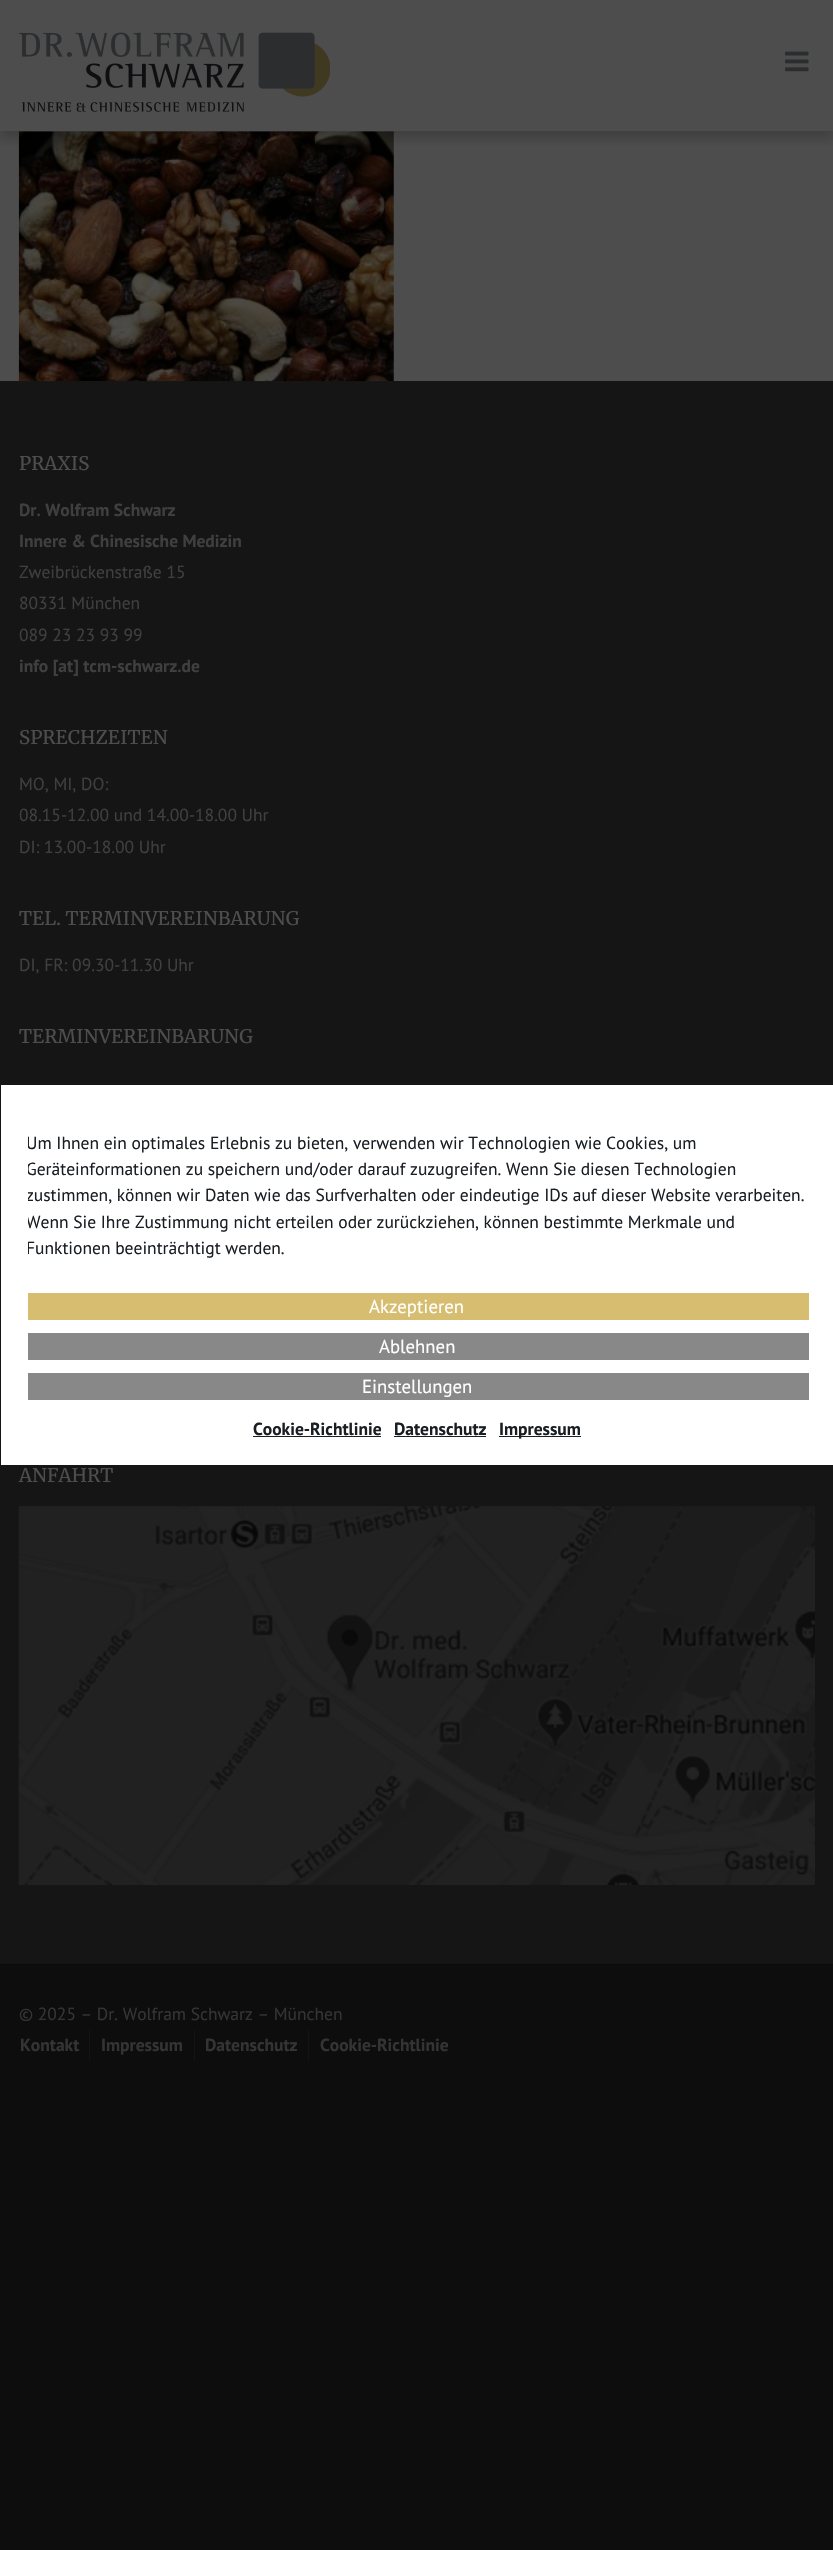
void draw(SkCanvas* canvas) {
	SkPaint fill;
	fill.setAntiAlias(true);
	auto makeFont = [&](const char* family, int weight, float size, bool italic = false) {
		SkFontStyle style(weight, SkFontStyle::kNormal_Width,
			italic ? SkFontStyle::kItalic_Slant : SkFontStyle::kUpright_Slant);
		SkFont result(fontMgr->matchFamilyStyle(family, style), size);
		result.setSubpixel(true);
		return result;
	};
	auto text = [&](const char* s, float x, float y, const SkFont& font) {
		canvas->drawString(s, x, y, font, fill);
	};
	auto box = [&](float l, float t, float r, float b) {
		canvas->drawRect(SkRect::MakeLTRB(l, t, r, b), fill);
	};
	auto picture = [&](const char* path, float l, float t, float r, float b) {
		auto image = SkImages::DeferredFromEncodedData(SkData::MakeFromFileName(path));
		canvas->drawImageRect(image, SkRect::MakeLTRB(l, t, r, b), SkSamplingOptions());
	};
	canvas->clear(0xFF0D0D0D);
	fill.setColor(0xFF4D4D4D);
	box(0, 0, 833, 381);
	fill.setColor(0xFF151515);
	box(0, 381, 833, 1964);
	picture("image2.png", 18, 131, 394, 382);
	canvas->save();
	canvas->clipRect(SkRect::MakeLTRB(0, 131, 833, 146));
	fill.setColor(0x33000000);
	fill.setMaskFilter(SkMaskFilter::MakeBlur(kNormal_SkBlurStyle, 6));
	canvas->drawRect(SkRect::MakeLTRB(0, 6, 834, 138), fill);
	fill.setMaskFilter(nullptr);
	canvas->restore();
	picture("image0.png", 19, 32, 330, 112);
	picture("image1.png", 785, 51, 809, 72);
	picture("image3.png", 18, 1506, 815, 1885);
	fill.setColor(0xFF0A0A0A);
	box(0, 1964, 833, 1965);
	fill.setColor(0xFF141414);
	box(89, 2030, 90, 2061);
	box(194, 2030, 195, 2061);
	box(308, 2030, 309, 2061);
	fill.setColor(0xFFFFFFFF);
	box(1, 1085, 833, 1465);
	fill.setColor(0xFFD7BD70);
	box(28, 1293, 809, 1320);
	fill.setColor(0xFF888888);
	box(28, 1333, 809, 1360);
	box(28, 1373, 809, 1400);
	fill.setColor(0xFF191E23);
	box(253, 1436, 381, 1437);
	box(394, 1436, 486, 1437);
	box(499, 1436, 581, 1437);
	auto font1 = makeFont("Merriweather", 400, 18.75f);
	fill.setColor(0xFF4D4D4D);
	text("PRAXIS", 19, 470, font1);
	auto font2 = makeFont("PT Sans", 700, 17.5f);
	fill.setColor(0xFF3F3F3F);
	text("Dr. Wolfram Schwarz", 19, 516, font2);
	text("Innere & Chinesische Medizin", 19, 547, font2);
	auto font3 = makeFont("PT Sans", 400, 17.5f);
	text("Zweibrückenstraße 15", 19, 578, font3);
	text("80331 München", 19, 609, font3);
	text("089 23 23 93 99", 19, 641, font3);
	text("info [at] tcm-schwarz.de", 19, 672, font2);
	fill.setColor(0xFF4D4D4D);
	text("SPRECHZEITEN", 19, 744, font1);
	fill.setColor(0xFF3F3F3F);
	text("MO, MI, DO:", 19, 790, font3);
	text("08.15-12.00 und 14.00-18.00 Uhr", 19, 821, font3);
	text("DI: 13.00-18.00 Uhr", 19, 853, font3);
	fill.setColor(0xFF4D4D4D);
	text("TEL. TERMINVEREINBARUNG", 19, 925, font1);
	fill.setColor(0xFF3F3F3F);
	text("DI, FR: 09.30-11.30 Uhr", 19, 971, font3);
	fill.setColor(0xFF4D4D4D);
	text("TERMINVEREINBARUNG", 19, 1043, font1);
	text("ANFAHRT", 19, 1482, font1);
	fill.setColor(0xFF343434);
	text("© 2025 – Dr. Wolfram Schwarz – München", 19, 2020, font3);
	text("Kontakt", 20, 2051, font2);
	text("Impressum", 101, 2051, font2);
	text("Datenschutz", 205, 2051, font2);
	text("Cookie-Richtlinie", 320, 2051, font2);
	canvas->save();
	canvas->clipRect(SkRect::MakeLTRB(28, 1130, 809, 1268));
	fill.setColor(0xFF191E23);
	text("Um Ihnen ein optimales Erlebnis zu bieten, verwenden wir Technologien wie Cookies, um", 26, 1149, font3);
	text("Geräteinformationen zu speichern und/oder darauf zuzugreifen. Wenn Sie diesen Technologien", 26, 1175, font3);
	text("zustimmen, können wir Daten wie das Surfverhalten oder eindeutige IDs auf dieser Website verarbeiten.", 26, 1201, font3);
	text("Wenn Sie Ihre Zustimmung nicht erteilen oder zurückziehen, können bestimmte Merkmale und", 26, 1228, font3);
	text("Funktionen beeinträchtigt werden.", 26, 1254, font3);
	canvas->restore();
	auto font4 = makeFont("PT Sans", 400, 18.75f);
	fill.setColor(0xFFFFFFFF);
	text("Akzeptieren", 369, 1313, font4);
	text("Ablehnen", 379, 1353, font4);
	text("Einstellungen", 362, 1393, font4);
	fill.setColor(0xFF191E23);
	text("Cookie-Richtlinie", 253, 1435, font2);
	text("Datenschutz", 394, 1435, font2);
	text("Impressum", 499, 1435, font2);
}
